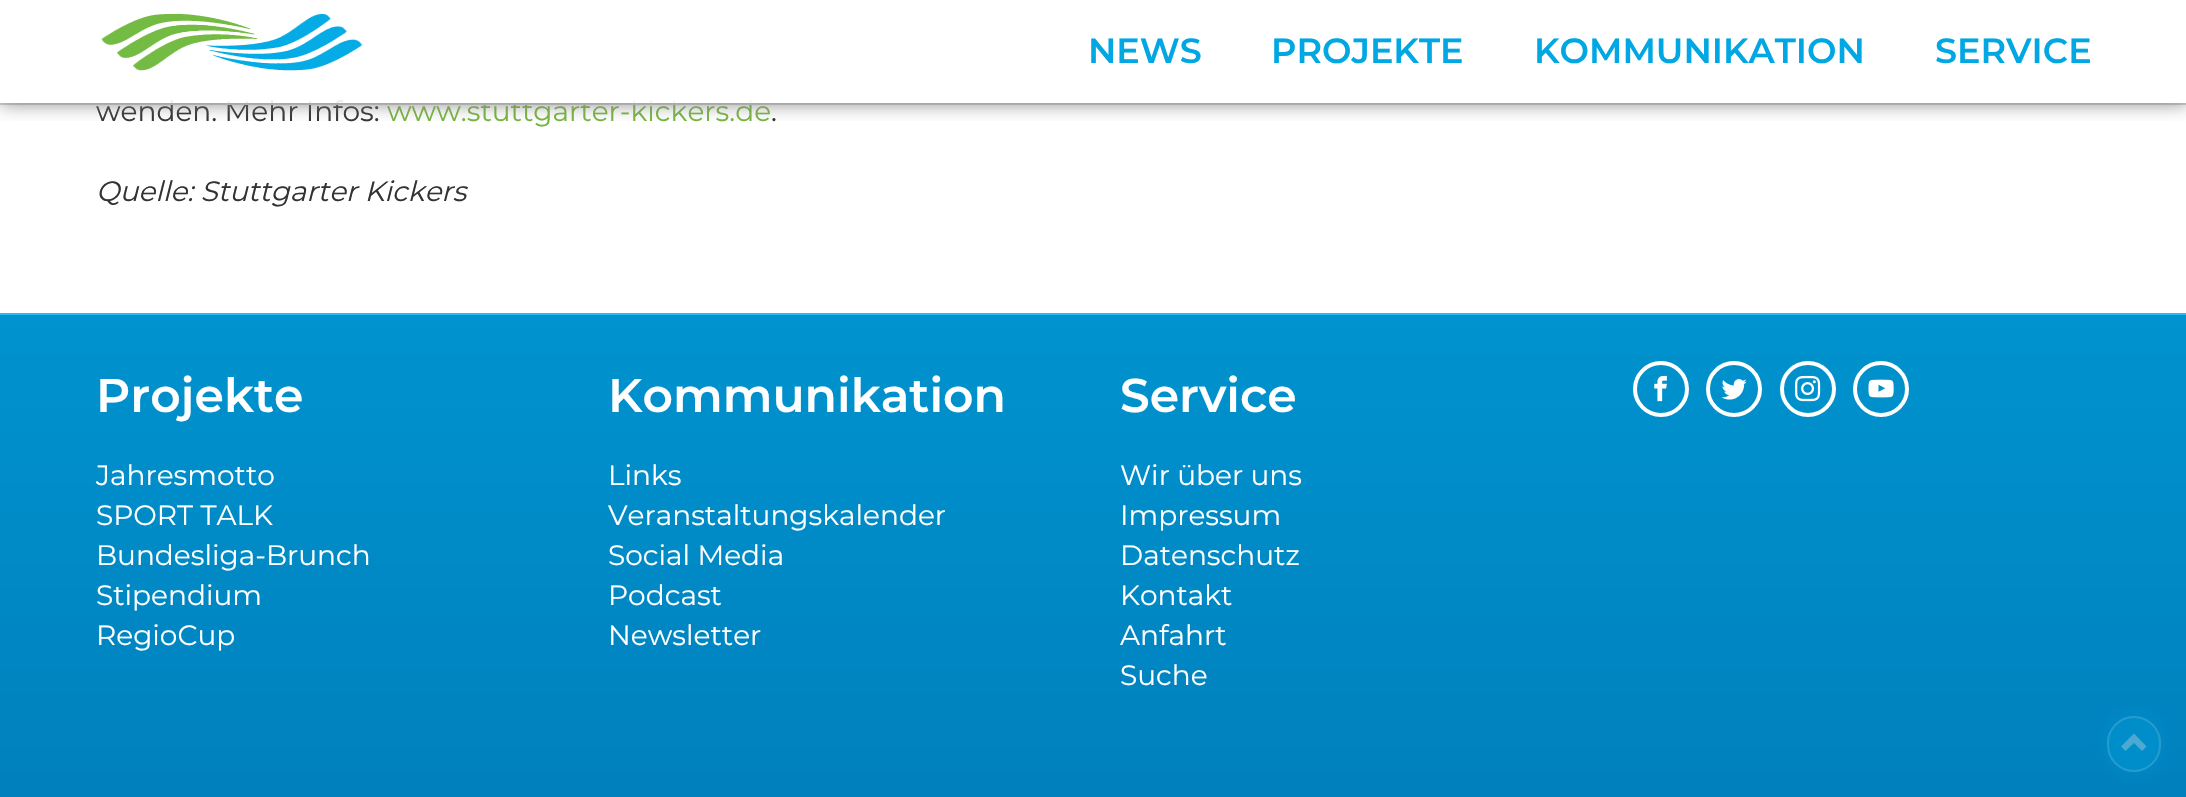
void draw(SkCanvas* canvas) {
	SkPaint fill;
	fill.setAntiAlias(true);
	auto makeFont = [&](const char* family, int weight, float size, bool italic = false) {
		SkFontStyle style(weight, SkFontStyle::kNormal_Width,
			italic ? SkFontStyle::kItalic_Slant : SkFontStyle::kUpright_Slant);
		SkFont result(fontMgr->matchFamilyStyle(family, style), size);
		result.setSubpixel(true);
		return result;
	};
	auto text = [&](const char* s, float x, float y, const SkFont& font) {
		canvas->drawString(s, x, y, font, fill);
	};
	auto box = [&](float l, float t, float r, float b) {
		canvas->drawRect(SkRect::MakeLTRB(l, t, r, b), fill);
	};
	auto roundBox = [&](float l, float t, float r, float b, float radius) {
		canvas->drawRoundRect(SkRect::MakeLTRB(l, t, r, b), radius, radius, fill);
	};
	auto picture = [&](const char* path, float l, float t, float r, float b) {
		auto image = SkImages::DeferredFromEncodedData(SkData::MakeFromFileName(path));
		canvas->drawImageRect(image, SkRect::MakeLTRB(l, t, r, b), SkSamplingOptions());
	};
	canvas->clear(0xFFFFFFFF);
	{
		const SkColor colors[] = {0xFF0093CF, 0xFF007FBB};
		const float stops[] = {0, 1};
		const SkPoint ends[] = {{1094, 315}, {1094, 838}};
		fill.setShader(SkGradientShader::MakeLinear(ends, colors, stops, 2, SkTileMode::kClamp));
		fill.setAlpha(255);
	}
	box(0, 315, 2186, 797);
	fill.setShader(nullptr);
	fill.setColor(0xFF28BBF7);
	box(0, 313, 2186, 315);
	fill.setStyle(SkPaint::kStroke_Style);
	fill.setStrokeWidth(4);
	fill.setColor(0xFFFFFFFF);
	canvas->drawCircle(1661, 389, 26, fill);
	picture("image1.png", 1654, 375, 1667, 402);
	canvas->drawCircle(1734, 389, 26, fill);
	picture("image2.png", 1721, 379, 1747, 400);
	canvas->drawCircle(1808, 389, 26, fill);
	picture("image3.png", 1794, 375, 1821, 402);
	canvas->drawCircle(1881, 389, 26, fill);
	picture("image4.png", 1868, 379, 1894, 398);
	fill.setStyle(SkPaint::kFill_Style);
	fill.setColor(0x4D00A7E3);
	fill.setMaskFilter(SkMaskFilter::MakeBlur(kNormal_SkBlurStyle, 9));
	canvas->drawRoundRect(SkRect::MakeLTRB(2107, 716, 2161, 772), 27, 27, fill);
	fill.setMaskFilter(nullptr);
	fill.setColor(0xFF008ECA);
	roundBox(2107, 716, 2161, 772, 27);
	fill.setStyle(SkPaint::kStroke_Style);
	fill.setStrokeWidth(2);
	fill.setColor(0x804DA8D2);
	canvas->drawRoundRect(SkRect::MakeLTRB(2108, 717, 2160, 771), 26, 26, fill);
	fill.setStyle(SkPaint::kFill_Style);
	fill.setColor(0xFF4DA8D2);
	canvas->drawPath(SkPathBuilder().moveTo(2146.5f, 746.5f).lineTo(2142, 751).lineTo(2134, 743).lineTo(2125.5f, 751).lineTo(2121, 746.5f).lineTo(2134, 733.5f).close().detach(), fill);
	auto font1 = makeFont("Montserrat", 400, 28);
	fill.setColor(0xFF333333);
	text("wenden. Mehr Infos:", 96, 121, font1);
	fill.setColor(0xFF77B63D);
	text("www.stuttgarter-kickers.de", 387, 121, font1);
	fill.setColor(0xFFD0D0D0);
	box(0, 103, 2186, 105);
	fill.setColor(0xE6FFFFFF);
	box(170, 100, 752, 103);
	canvas->save();
	canvas->clipRect(SkRect::MakeLTRB(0, 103, 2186, 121));
	fill.setColor(0xFF818181);
	fill.setMaskFilter(SkMaskFilter::MakeBlur(kNormal_SkBlurStyle, 9));
	canvas->drawRect(SkRect::MakeLTRB(0, -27, 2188, 103), fill);
	fill.setMaskFilter(nullptr);
	canvas->restore();
	auto font2 = makeFont("Montserrat", 600, 35);
	fill.setColor(0xFF00A7E3);
	text("SERVICE", 1935, 63, font2);
	text("KOMMUNIKATION", 1534, 63, font2);
	text("PROJEKTE", 1271, 63, font2);
	text("NEWS", 1088, 63, font2);
	picture("image0.png", 101, 14, 363, 71);
	fill.setColor(0xFF333333);
	text(".", 771, 121, font1);
	auto font3 = makeFont("Montserrat", 400, 28, true);
	text("Quelle: Stuttgarter Kickers", 96, 201, font3);
	auto font4 = makeFont("Montserrat", 600, 47.25f);
	fill.setColor(0xFFFFFFFF);
	text("Projekte", 96, 412, font4);
	text("Jahresmotto", 96, 485, font1);
	text("SPORT TALK", 96, 525, font1);
	text("Bundesliga-Brunch", 96, 565, font1);
	text("Stipendium", 96, 605, font1);
	text("RegioCup", 96, 645, font1);
	text("Kommunikation", 608, 412, font4);
	text("Links", 608, 485, font1);
	text("Veranstaltungskalender", 608, 525, font1);
	text("Social Media", 608, 565, font1);
	text("Podcast", 608, 605, font1);
	text("Newsletter", 608, 645, font1);
	text("Service", 1120, 412, font4);
	text("Wir über uns", 1120, 485, font1);
	text("Impressum", 1120, 525, font1);
	text("Datenschutz", 1120, 565, font1);
	text("Kontakt", 1120, 605, font1);
	text("Anfahrt", 1120, 645, font1);
	text("Suche", 1120, 685, font1);
}
